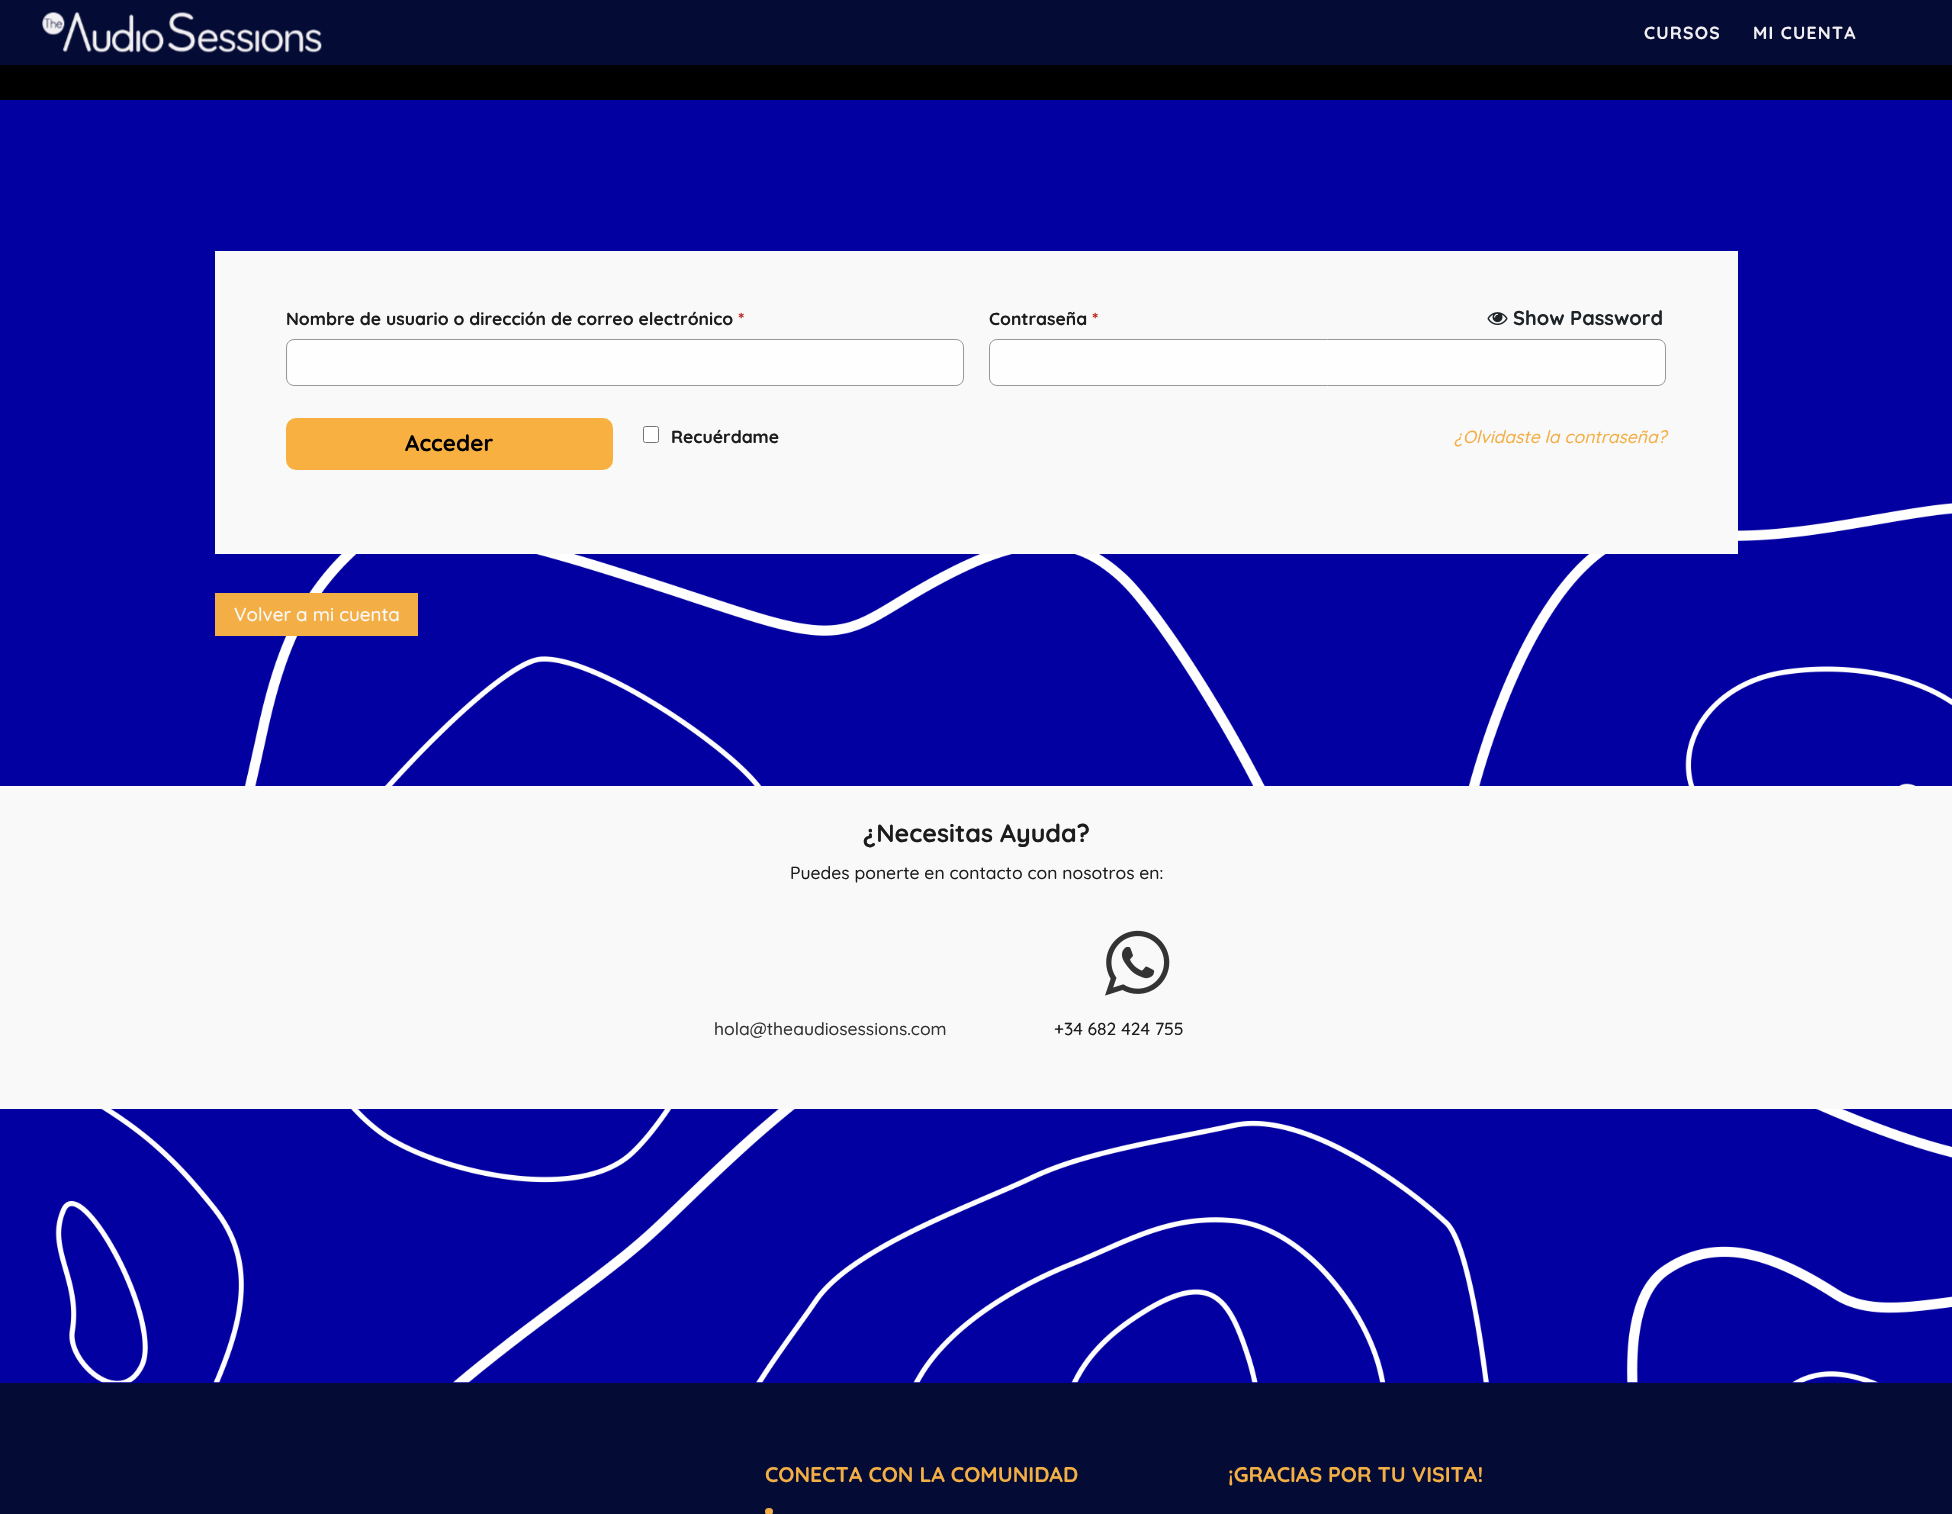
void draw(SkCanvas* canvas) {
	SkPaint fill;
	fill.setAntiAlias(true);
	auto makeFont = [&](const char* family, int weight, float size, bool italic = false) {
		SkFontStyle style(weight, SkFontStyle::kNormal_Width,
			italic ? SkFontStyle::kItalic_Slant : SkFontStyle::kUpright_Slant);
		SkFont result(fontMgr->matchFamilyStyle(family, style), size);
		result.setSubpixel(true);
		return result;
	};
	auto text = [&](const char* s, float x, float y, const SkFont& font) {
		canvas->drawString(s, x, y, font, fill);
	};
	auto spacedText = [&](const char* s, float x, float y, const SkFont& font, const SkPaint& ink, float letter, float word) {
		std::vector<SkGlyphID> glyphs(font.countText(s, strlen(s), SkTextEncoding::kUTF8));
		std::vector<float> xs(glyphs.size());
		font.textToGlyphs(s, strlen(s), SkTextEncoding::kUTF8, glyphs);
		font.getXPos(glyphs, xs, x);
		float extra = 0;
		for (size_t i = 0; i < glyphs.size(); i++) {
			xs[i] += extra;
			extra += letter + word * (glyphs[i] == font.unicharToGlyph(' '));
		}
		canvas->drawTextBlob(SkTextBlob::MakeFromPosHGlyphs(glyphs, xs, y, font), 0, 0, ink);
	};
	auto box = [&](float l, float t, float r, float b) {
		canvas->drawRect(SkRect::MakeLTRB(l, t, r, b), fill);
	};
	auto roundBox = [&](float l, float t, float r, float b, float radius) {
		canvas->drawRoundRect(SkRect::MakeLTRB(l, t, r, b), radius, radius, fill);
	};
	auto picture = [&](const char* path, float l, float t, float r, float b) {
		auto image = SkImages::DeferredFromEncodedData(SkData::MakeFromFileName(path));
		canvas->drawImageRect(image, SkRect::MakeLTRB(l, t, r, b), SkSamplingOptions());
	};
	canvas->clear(0xFF000000);
	fill.setColor(0xFF040B34);
	box(0, 0, 1952, 65);
	picture("image0.png", 42, 12, 322, 53);
	fill.setColor(0xFF0200A0);
	box(0, 100, 1952, 1383);
	picture("image2.png", 55, 503, 1952, 1383);
	fill.setColor(0xFFF9F9F9);
	box(215, 251, 1738, 554);
	fill.setColor(0xFFFEFEFE);
	roundBox(288, 340, 963, 385, 6);
	fill.setStyle(SkPaint::kStroke_Style);
	fill.setStrokeWidth(1);
	fill.setColor(0xFF999999);
	canvas->drawRoundRect(SkRect::MakeLTRB(286.5f, 339.5f, 963.5f, 385.5f), 7.5f, 7.5f, fill);
	picture("image1.png", 1487, 312, 1508, 325);
	fill.setStyle(SkPaint::kFill_Style);
	fill.setColor(0xFFFEFEFE);
	roundBox(990, 340, 1665, 385, 6);
	fill.setStyle(SkPaint::kStroke_Style);
	fill.setColor(0xFF999999);
	canvas->drawRoundRect(SkRect::MakeLTRB(989.5f, 339.5f, 1665.5f, 385.5f), 7.5f, 7.5f, fill);
	fill.setStyle(SkPaint::kFill_Style);
	fill.setColor(0xFFF8B041);
	roundBox(286, 418, 613, 470, 10);
	fill.setColor(0xFFFFFFFF);
	canvas->drawRoundRect(SkRect::MakeLTRB(643.5f, 426.5f, 658.5f, 442.5f), 2, 2, fill);
	fill.setStyle(SkPaint::kStroke_Style);
	fill.setColor(0xFF767676);
	canvas->drawRoundRect(SkRect::MakeLTRB(643.5f, 426.5f, 658.5f, 442.5f), 2, 2, fill);
	fill.setStyle(SkPaint::kFill_Style);
	fill.setColor(0xFFF3AF45);
	box(215, 593, 418, 636);
	fill.setColor(0xFFF9F9F9);
	box(0, 786, 1952, 1109);
	picture("image3.png", 1105, 930, 1170, 996);
	fill.setColor(0xFF040B34);
	box(0, 1383, 1952, 1514);
	fill.setColor(0xFFF3AF45);
	roundBox(765, 1508, 773, 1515, 3.5f);
	auto font1 = makeFont("Quicksand", 700, 17.5f);
	fill.setColor(0xFFF2F0F3);
	spacedText("CURSOS", 1644, 39, font1, fill, 1.25f, 0);
	spacedText("MI CUENTA", 1753, 39, font1, fill, 1.25f, 0);
	fill.setColor(0xFF1C1C1C);
	text("Nombre de usuario o dirección de correo electrónico", 286, 325, font1);
	fill.setColor(0xFFBB231C);
	text("*", 738, 325, font1);
	fill.setColor(0xFF1C1C1C);
	text("Contraseña", 989, 325, font1);
	fill.setColor(0xFFBB231C);
	text("*", 1092, 325, font1);
	auto font2 = makeFont("Quicksand", 700, 20);
	fill.setColor(0xFF1D2327);
	text("Show Password", 1513, 325, font2);
	auto font3 = makeFont("Quicksand", 700, 22.5f);
	fill.setColor(0xFF000000);
	text("Acceder", 405, 451, font3);
	fill.setColor(0xFF1C1C1C);
	text("Recuérdame", 671, 443, font1);
	auto font4 = makeFont("Quicksand", 500, 17.5f, true);
	fill.setColor(0xFFF3AF45);
	text("¿Olvidaste la contraseña?", 1454, 443, font4);
	auto font5 = makeFont("Quicksand", 500, 18.75f);
	fill.setColor(0xFFF9F9F9);
	text("Volver a mi cuenta", 234, 621, font5);
	auto font6 = makeFont("Quicksand", 700, 25);
	fill.setColor(0xFF1C1C1C);
	text("¿Necesitas Ayuda?", 863, 842, font6);
	auto font7 = makeFont("Quicksand", 500, 17.5f);
	text("Puedes ponerte en contacto con nosotros en:", 790, 879, font7);
	fill.setColor(0xFF333333);
	text("hola@theaudiosessions.com", 714, 1035, font7);
	fill.setColor(0xFF1C1C1C);
	text("+34 682 424 755", 1054, 1035, font7);
	auto font8 = makeFont("Quicksand", 700, 21.25f);
	fill.setColor(0xFFF3AF45);
	text("CONECTA CON LA COMUNIDAD", 765, 1482, font8);
	text("¡GRACIAS POR TU VISITA!", 1228, 1482, font8);
}
